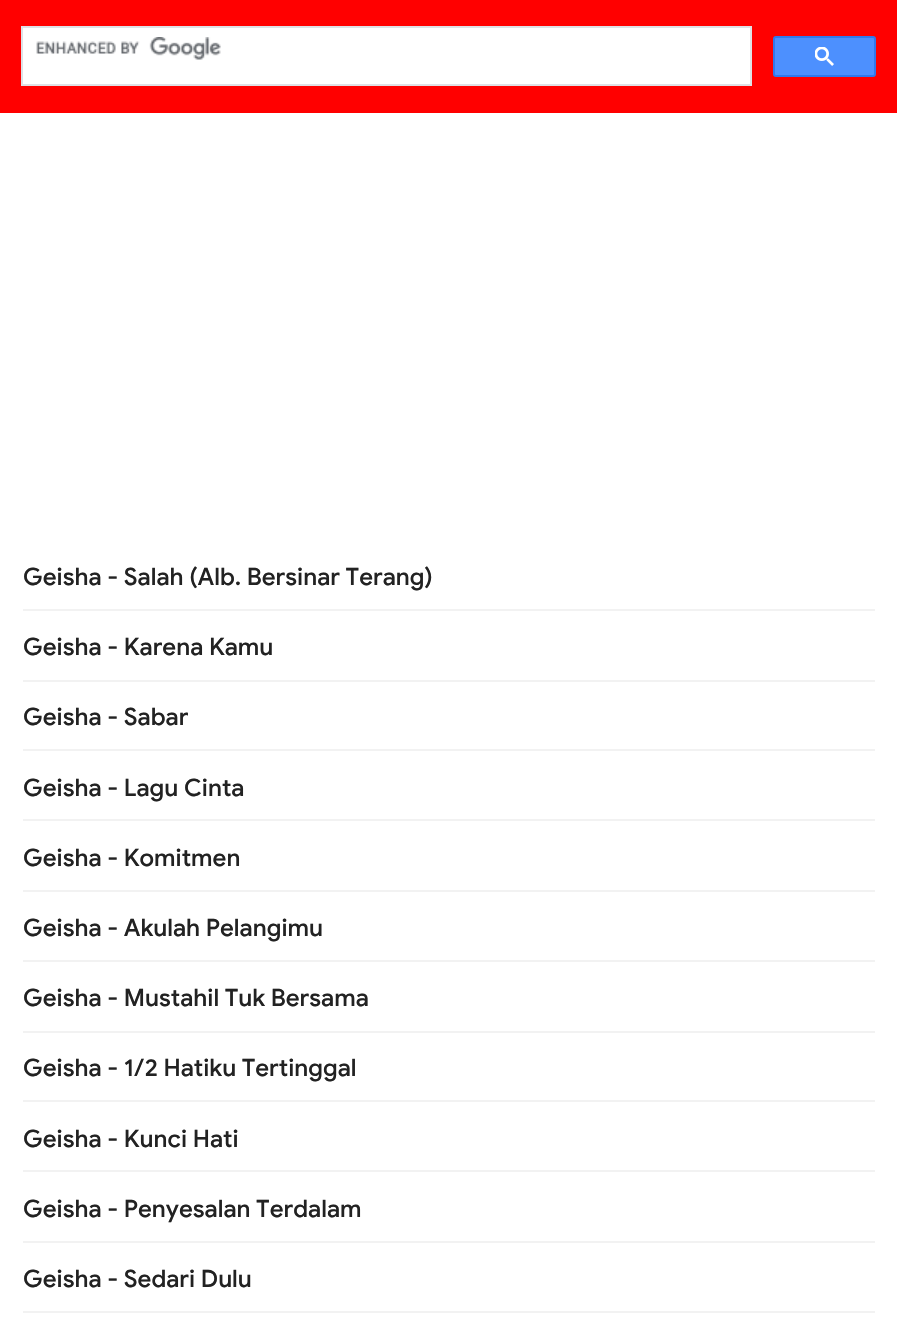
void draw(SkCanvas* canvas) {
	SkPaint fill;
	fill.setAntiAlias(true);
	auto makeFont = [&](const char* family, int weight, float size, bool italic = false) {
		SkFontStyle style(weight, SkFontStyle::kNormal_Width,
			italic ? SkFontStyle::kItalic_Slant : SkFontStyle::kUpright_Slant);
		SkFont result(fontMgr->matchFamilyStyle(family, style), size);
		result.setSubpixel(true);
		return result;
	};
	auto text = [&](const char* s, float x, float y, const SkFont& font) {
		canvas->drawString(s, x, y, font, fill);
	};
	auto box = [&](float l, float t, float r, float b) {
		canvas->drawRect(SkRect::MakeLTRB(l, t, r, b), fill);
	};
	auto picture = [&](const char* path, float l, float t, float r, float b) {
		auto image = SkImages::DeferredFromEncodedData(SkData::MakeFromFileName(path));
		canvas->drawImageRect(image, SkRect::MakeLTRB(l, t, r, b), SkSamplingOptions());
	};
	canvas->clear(0xFFFFFFFF);
	fill.setColor(0xFFFF0000);
	box(0, 0, 897, 113);
	fill.setColor(0xFFFFFFFF);
	canvas->drawRect(SkRect::MakeLTRB(22, 27, 751, 85), fill);
	fill.setStyle(SkPaint::kStroke_Style);
	fill.setStrokeWidth(2);
	fill.setColor(0xFFDFE1E5);
	canvas->drawRect(SkRect::MakeLTRB(22, 27, 751, 85), fill);
	picture("image0.png", 36, 37, 221, 60);
	fill.setStyle(SkPaint::kFill_Style);
	fill.setColor(0xFF4D90FE);
	canvas->drawRoundRect(SkRect::MakeLTRB(774, 37, 875, 76), 2, 2, fill);
	fill.setStyle(SkPaint::kStroke_Style);
	fill.setColor(0xFF3079ED);
	canvas->drawRoundRect(SkRect::MakeLTRB(774, 37, 875, 76), 2, 2, fill);
	picture("image1.png", 815, 47, 834, 66);
	fill.setStyle(SkPaint::kFill_Style);
	fill.setColor(0xFFF2F2F2);
	box(23, 609, 875, 611);
	box(23, 680, 875, 682);
	box(23, 749, 875, 751);
	box(23, 819, 875, 821);
	box(23, 890, 875, 892);
	box(23, 960, 875, 962);
	box(23, 1031, 875, 1033);
	box(23, 1100, 875, 1102);
	box(23, 1170, 875, 1172);
	box(23, 1241, 875, 1243);
	box(23, 1311, 875, 1313);
	auto font1 = makeFont("Google Sans", 500, 24);
	fill.setColor(0xFF222222);
	text("Geisha - Salah (Alb. Bersinar Terang)", 23, 585, font1);
	text("Geisha - Karena Kamu", 23, 655, font1);
	text("Geisha - Sabar", 23, 725, font1);
	text("Geisha - Lagu Cinta", 23, 796, font1);
	text("Geisha - Komitmen", 23, 866, font1);
	text("Geisha - Akulah Pelangimu", 23, 936, font1);
	text("Geisha - Mustahil Tuk Bersama", 23, 1006, font1);
	text("Geisha - 1/2 Hatiku Tertinggal", 23, 1076, font1);
	text("Geisha - Kunci Hati", 23, 1147, font1);
	text("Geisha - Penyesalan Terdalam", 23, 1217, font1);
	text("Geisha - Sedari Dulu", 23, 1287, font1);
}
